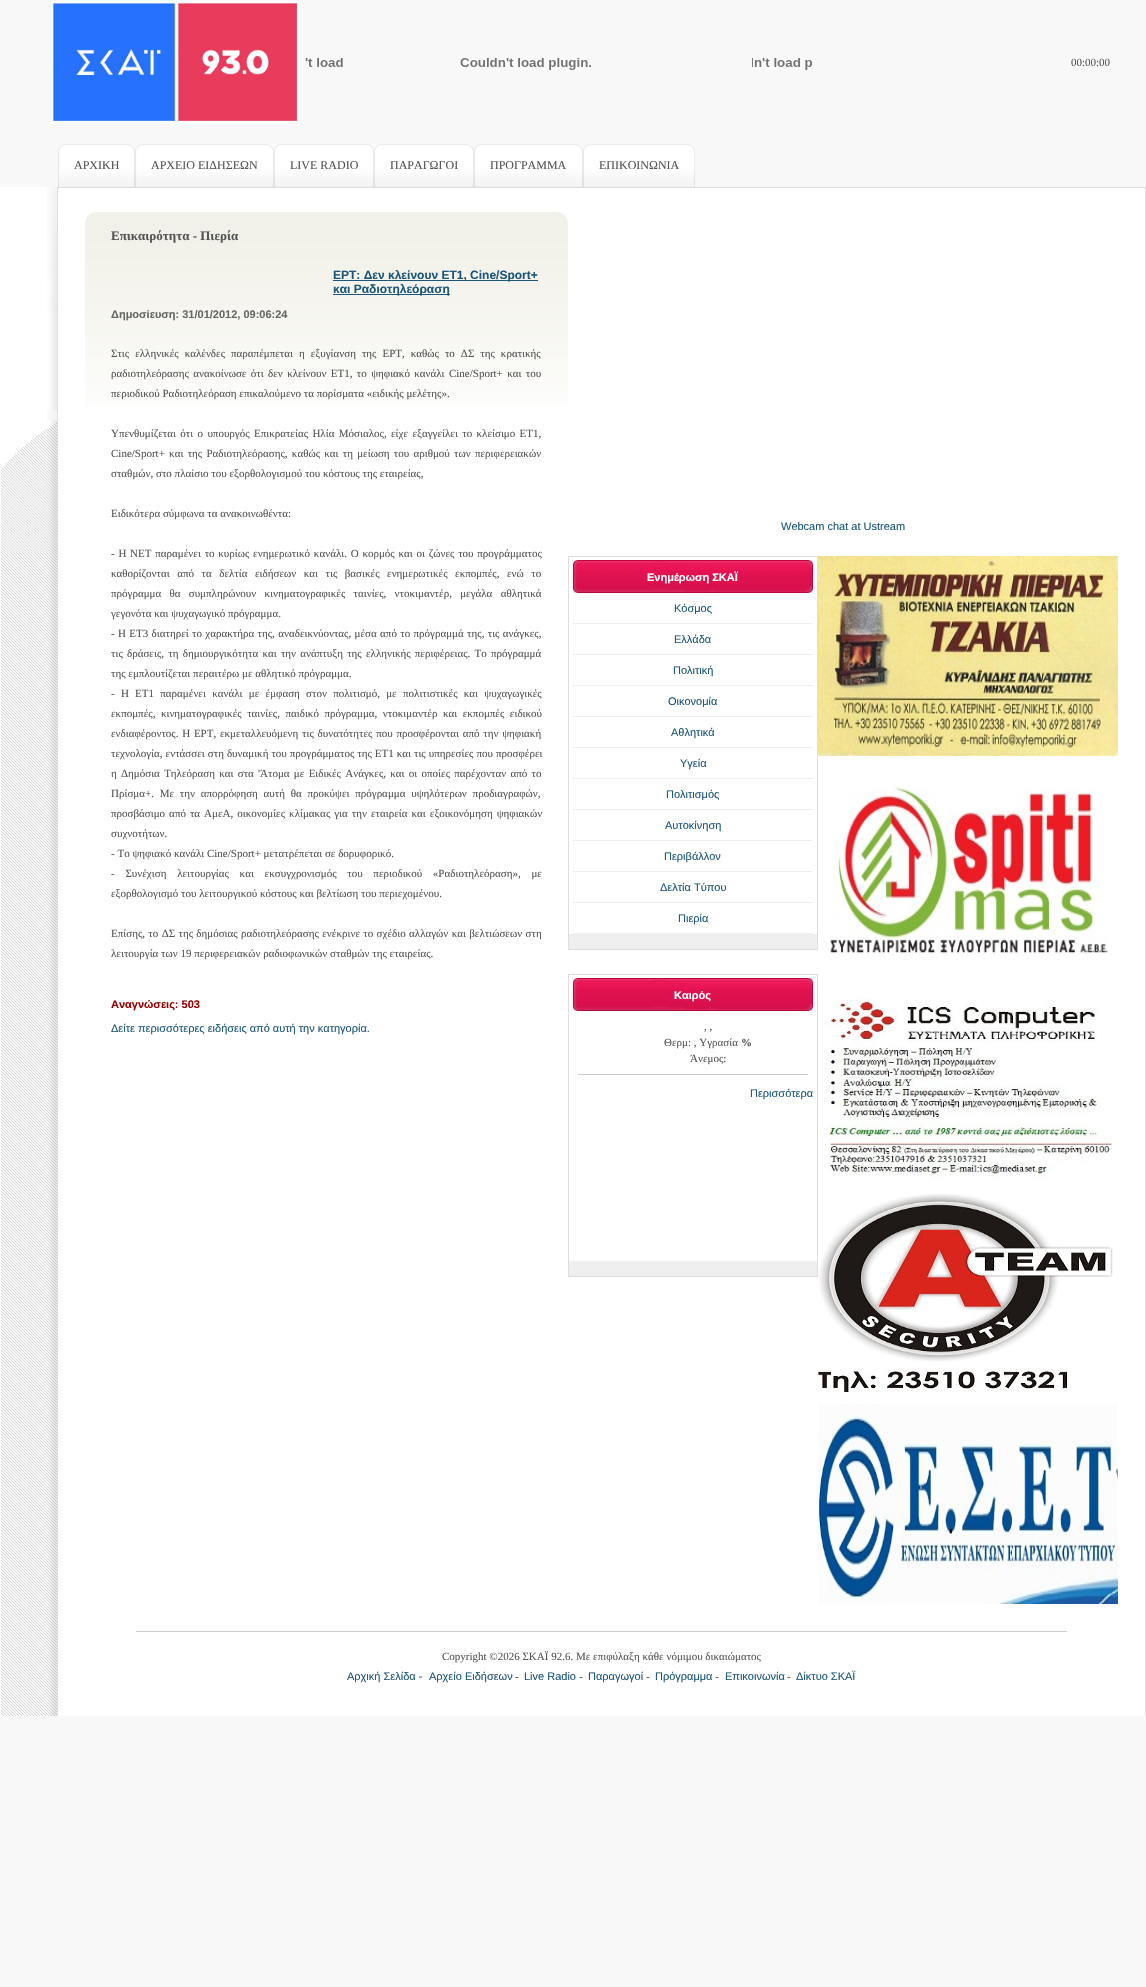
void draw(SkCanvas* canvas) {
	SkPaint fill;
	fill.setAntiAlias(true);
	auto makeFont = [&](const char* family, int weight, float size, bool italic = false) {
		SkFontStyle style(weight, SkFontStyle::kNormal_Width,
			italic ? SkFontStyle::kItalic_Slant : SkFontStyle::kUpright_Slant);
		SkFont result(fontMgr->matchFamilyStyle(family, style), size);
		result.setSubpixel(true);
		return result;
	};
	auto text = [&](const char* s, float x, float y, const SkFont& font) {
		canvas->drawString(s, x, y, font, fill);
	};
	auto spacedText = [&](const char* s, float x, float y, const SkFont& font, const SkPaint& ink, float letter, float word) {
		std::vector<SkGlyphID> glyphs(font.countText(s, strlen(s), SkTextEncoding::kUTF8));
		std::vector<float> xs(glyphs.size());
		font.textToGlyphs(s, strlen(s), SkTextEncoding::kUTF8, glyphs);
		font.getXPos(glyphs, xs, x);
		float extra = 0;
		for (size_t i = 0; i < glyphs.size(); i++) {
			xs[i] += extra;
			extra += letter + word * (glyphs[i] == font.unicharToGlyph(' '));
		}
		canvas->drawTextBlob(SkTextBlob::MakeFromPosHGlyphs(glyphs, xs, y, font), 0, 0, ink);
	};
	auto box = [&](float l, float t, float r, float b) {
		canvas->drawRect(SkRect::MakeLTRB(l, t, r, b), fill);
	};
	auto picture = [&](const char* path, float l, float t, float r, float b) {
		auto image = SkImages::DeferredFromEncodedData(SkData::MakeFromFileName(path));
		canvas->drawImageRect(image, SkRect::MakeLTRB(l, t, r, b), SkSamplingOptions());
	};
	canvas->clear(0xFFF8F8F8);
	picture("image0.png", 50, 0, 300, 124);
	picture("image1.png", 305, 58, 343, 67);
	picture("image2.png", 460, 58, 591, 70);
	picture("image3.png", 752, 58, 812, 70);
	fill.setColor(0xFFFFFFFF);
	box(0, 187, 1145, 1716);
	picture("image4.png", 58, 144, 129, 187);
	picture("image5.png", 129, 144, 135, 187);
	picture("image6.png", 135, 144, 268, 187);
	picture("image5.png", 268, 144, 274, 187);
	picture("image7.png", 274, 144, 368, 187);
	picture("image5.png", 368, 144, 374, 187);
	picture("image7.png", 374, 144, 468, 187);
	picture("image5.png", 468, 144, 474, 187);
	picture("image8.png", 474, 144, 577, 187);
	picture("image5.png", 577, 144, 583, 187);
	picture("image9.png", 583, 144, 689, 187);
	picture("image5.png", 689, 144, 695, 187);
	picture("image10.png", 1, 420, 58, 552);
	picture("image11.png", 47, 187, 58, 420);
	fill.setColor(0xFFDEDEDE);
	box(58, 187, 1146, 188);
	box(1145, 187, 1146, 1716);
	picture("image12.png", 85, 212, 111, 407);
	picture("image13.png", 111, 212, 542, 407);
	fill.setColor(0xFF1C5679);
	box(333, 280, 538, 281);
	box(333, 294, 450, 295);
	picture("image14.png", 542, 212, 568, 407);
	fill.setColor(0xFFDDDDDD);
	box(568, 556, 818, 557);
	box(817, 556, 818, 950);
	box(568, 949, 818, 950);
	box(568, 556, 569, 950);
	picture("image15.png", 573, 560, 813, 593);
	fill.setColor(0xFFEFEFEF);
	box(573, 623, 813, 624);
	box(573, 654, 813, 655);
	box(573, 685, 813, 686);
	box(573, 716, 813, 717);
	box(573, 747, 813, 748);
	box(573, 778, 813, 779);
	box(573, 809, 813, 810);
	box(573, 840, 813, 841);
	box(573, 871, 813, 872);
	box(573, 902, 813, 903);
	box(573, 933, 813, 934);
	box(569, 934, 817, 949);
	fill.setColor(0xFFDDDDDD);
	box(568, 974, 818, 975);
	box(817, 974, 818, 1277);
	box(568, 1276, 818, 1277);
	box(568, 974, 569, 1277);
	picture("image15.png", 573, 978, 813, 1011);
	fill.setColor(0xFFCCCCCC);
	box(578, 1074, 808, 1075);
	fill.setColor(0xFFEFEFEF);
	box(569, 1261, 817, 1276);
	picture("image16.png", 818, 556, 1118, 756);
	picture("image17.png", 830, 784, 1108, 956);
	picture("image18.png", 818, 997, 1112, 1179);
	picture("image19.png", 818, 1194, 1113, 1392);
	picture("image20.png", 818, 1404, 1118, 1604);
	fill.setColor(0xFFCCCCCC);
	box(136, 1631, 1067, 1632);
	picture("image21.png", 1, 552, 58, 1716);
	auto font1 = makeFont("Liberation Serif", 400, 11);
	fill.setColor(0xFF555555);
	text("00:00:00", 1071, 66, font1);
	auto font2 = makeFont("Liberation Serif", 400, 12);
	text("ΑΡΧΙΚΗ", 74, 169, font2);
	text("ΑΡΧΕΙΟ ΕΙΔΗΣΕΩΝ", 151, 169, font2);
	text("LIVE RADIO", 290, 169, font2);
	text("ΠΑΡΑΓΩΓΟΙ", 390, 169, font2);
	text("ΠΡΟΓΡΑΜΜΑ", 490, 169, font2);
	text("ΕΠΙΚΟΙΝΩΝΙΑ", 599, 169, font2);
	auto font3 = makeFont("Liberation Serif", 700, 13);
	text("Επικαιρότητα - Πιερία", 111, 240, font3);
	auto font4 = makeFont("Liberation Sans", 700, 12);
	fill.setColor(0xFF1C5679);
	text("ΕΡΤ: Δεν κλείνουν ΕΤ1, Cine/Sport+", 333, 279, font4);
	text("και Ραδιοτηλεόραση", 333, 293, font4);
	auto font5 = makeFont("Liberation Sans", 700, 11);
	fill.setColor(0xFF666665);
	text("Δημοσίευση: 31/01/2012, 09:06:24", 111, 318, font5);
	fill.setColor(0xFF555555);
	spacedText("Στις ελληνικές καλένδες παραπέμπεται η εξυγίανση της ΕΡΤ, καθώς το ΔΣ της κρατικής", 111, 357, font1, fill, 0, 3.25f);
	spacedText("ραδιοτηλεόρασης ανακοίνωσε ότι δεν κλείνουν ΕΤ1, το ψηφιακό κανάλι Cine/Sport+ και του", 111, 377, font1, fill, 0, 1.6f);
	text("περιοδικού Ραδιοτηλεόραση επικαλούμενο τα πορίσματα «ειδικής μελέτης».", 111, 397, font1);
	spacedText("Υπενθυμίζεται ότι ο υπουργός Επικρατείας Ηλία Μόσιαλος, είχε εξαγγείλει το κλείσιμο ΕΤ1,", 111, 437, font1, fill, 0, 1.6f);
	spacedText("Cine/Sport+ και της Ραδιοτηλεόρασης, καθώς και τη μείωση του αριθμού των περιφερειακών", 111, 457, font1, fill, 0, 1.5f);
	text("σταθμών, στο πλαίσιο του εξορθολογισμού του κόστους της εταιρείας,", 111, 477, font1);
	text("Ειδικότερα σύμφωνα τα ανακοινωθέντα:", 111, 517, font1);
	spacedText("- Η ΝΕΤ παραμένει το κυρίως ενημερωτικό κανάλι. Ο κορμός και οι ζώνες του προγράμματος", 111, 557, font1, fill, 0, 1);
	spacedText("καθορίζονται από τα δελτία ειδήσεων και τις βασικές ενημερωτικές εκπομπές, ενώ το", 111, 577, font1, fill, 0, 4.75f);
	spacedText("πρόγραμμα θα συμπληρώνουν κινηματογραφικές ταινίες, ντοκιμαντέρ, μεγάλα αθλητικά", 111, 597, font1, fill, 0, 5.5f);
	text("γεγονότα και ψυχαγωγικό πρόγραμμα.", 111, 617, font1);
	spacedText("- Η ΕΤ3 διατηρεί το χαρακτήρα της, αναδεικνύοντας, μέσα από το πρόγραμμά της, τις ανάγκες,", 111, 637, font1, fill, 0, 0.6f);
	spacedText("τις δράσεις, τη δημιουργικότητα και την ανάπτυξη της ελληνικής περιφέρειας. Το πρόγραμμά", 111, 657, font1, fill, 0, 1.5f);
	text("της εμπλουτίζεται περαιτέρω με αθλητικό πρόγραμμα.", 111, 677, font1);
	spacedText("- Η ΕΤ1 παραμένει κανάλι με έμφαση στον πολιτισμό, με πολιτιστικές και ψυχαγωγικές", 111, 697, font1, fill, 0, 3.5f);
	spacedText("εκπομπές, κινηματογραφικές ταινίες, παιδικό πρόγραμμα, ντοκιμαντέρ και εκπομπές ειδικού", 111, 717, font1, fill, 0, 2.75f);
	spacedText("ενδιαφέροντος. Η ΕΡΤ, εκμεταλλευόμενη τις δυνατότητες που προσφέρονται από την ψηφιακή", 111, 737, font1, fill, 0, 1);
	spacedText("τεχνολογία, εντάσσει στη δυναμική του προγράμματος της ΕΤ1 και τις υπηρεσίες που προσφέρει", 111, 757, font1, fill, 0, 0.25f);
	spacedText("η Δημόσια Τηλεόραση και στα 'Άτομα με Ειδικές Ανάγκες, και οι οποίες παρέχονταν από το", 111, 777, font1, fill, 0, 1.5f);
	spacedText("Πρίσμα+. Με την απορρόφηση αυτή θα προκύψει πρόγραμμα υψηλότερων προδιαγραφών,", 111, 797, font1, fill, 0, 3);
	spacedText("προσβάσιμο από τα ΑμεΑ, οικονομίες κλίμακας για την εταιρεία και εξοικονόμηση ψηφιακών", 111, 817, font1, fill, 0, 1.25f);
	text("συχνοτήτων.", 111, 837, font1);
	text("- Το ψηφιακό κανάλι Cine/Sport+ μετατρέπεται σε δορυφορικό.", 111, 857, font1);
	spacedText("- Συνέχιση λειτουργίας και εκσυγχρονισμός του περιοδικού «Ραδιοτηλεόραση», με", 111, 877, font1, fill, 0, 8);
	text("εξορθολογισμό του λειτουργικού κόστους και βελτίωση του περιεχομένου.", 111, 897, font1);
	spacedText("Επίσης, το ΔΣ της δημόσιας ραδιοτηλεόρασης ενέκρινε το σχέδιο αλλαγών και βελτιώσεων στη", 111, 937, font1, fill, 0, 0.6f);
	text("λειτουργία των 19 περιφερειακών ραδιοφωνικών σταθμών της εταιρείας.", 111, 957, font1);
	fill.setColor(0xFF990000);
	text("Αναγνώσεις: 503", 111, 1008, font5);
	auto font6 = makeFont("Liberation Sans", 400, 11);
	fill.setColor(0xFF1C5679);
	text("Δείτε περισσότερες ειδήσεις από αυτή την κατηγορία.", 111, 1032, font6);
	text("Webcam chat at Ustream", 781, 530, font6);
	fill.setColor(0xFFFFFFFF);
	text("Ενημέρωση ΣΚΑΪ", 647, 581, font5);
	fill.setColor(0xFF1C5679);
	text("Κόσμος", 674, 612, font6);
	text("Ελλάδα", 674, 643, font6);
	text("Πολιτική", 673, 674, font6);
	text("Οικονομία", 668, 705, font6);
	text("Αθλητικά", 671, 736, font6);
	text("Υγεία", 680, 767, font6);
	text("Πολιτισμός", 666, 798, font6);
	text("Αυτοκίνηση", 665, 829, font6);
	text("Περιβάλλον", 664, 860, font6);
	text("Δελτία Τύπου", 660, 891, font6);
	text("Πιερία", 678, 922, font6);
	fill.setColor(0xFFFFFFFF);
	text("Καιρός", 674, 999, font5);
	fill.setColor(0xFF555555);
	text(", ,", 704, 1030, font1);
	text("Θερμ: , Υγρασία", 664, 1046, font1);
	auto font7 = makeFont("Liberation Serif", 700, 11);
	text("%", 741, 1046, font7);
	text("Άνεμος:", 690, 1062, font1);
	fill.setColor(0xFF1C5679);
	text("Περισσότερα", 750, 1097, font6);
	fill.setColor(0xFF555555);
	text("Copyright ©2026 ΣΚΑΪ 92.6. Με επιφύλαξη κάθε νόμιμου δικαιώματος", 442, 1660, font1);
	fill.setColor(0xFF1C5679);
	text("Αρχική Σελίδα -", 347, 1680, font6);
	text("Αρχείο Ειδήσεων", 429, 1680, font6);
	fill.setColor(0xFF555555);
	text("-", 515, 1680, font1);
	fill.setColor(0xFF1C5679);
	text("Live Radio", 524, 1680, font6);
	fill.setColor(0xFF555555);
	text("-", 579, 1680, font1);
	fill.setColor(0xFF1C5679);
	text("Παραγωγοί", 588, 1680, font6);
	fill.setColor(0xFF555555);
	text("-", 646, 1680, font1);
	fill.setColor(0xFF1C5679);
	text("Πρόγραμμα", 655, 1680, font6);
	fill.setColor(0xFF555555);
	text("-", 715, 1680, font1);
	fill.setColor(0xFF1C5679);
	text("Επικοινωνία", 725, 1680, font6);
	fill.setColor(0xFF555555);
	text("-", 787, 1680, font1);
	fill.setColor(0xFF1C5679);
	text("Δίκτυο ΣΚΑΪ", 796, 1680, font6);
}
